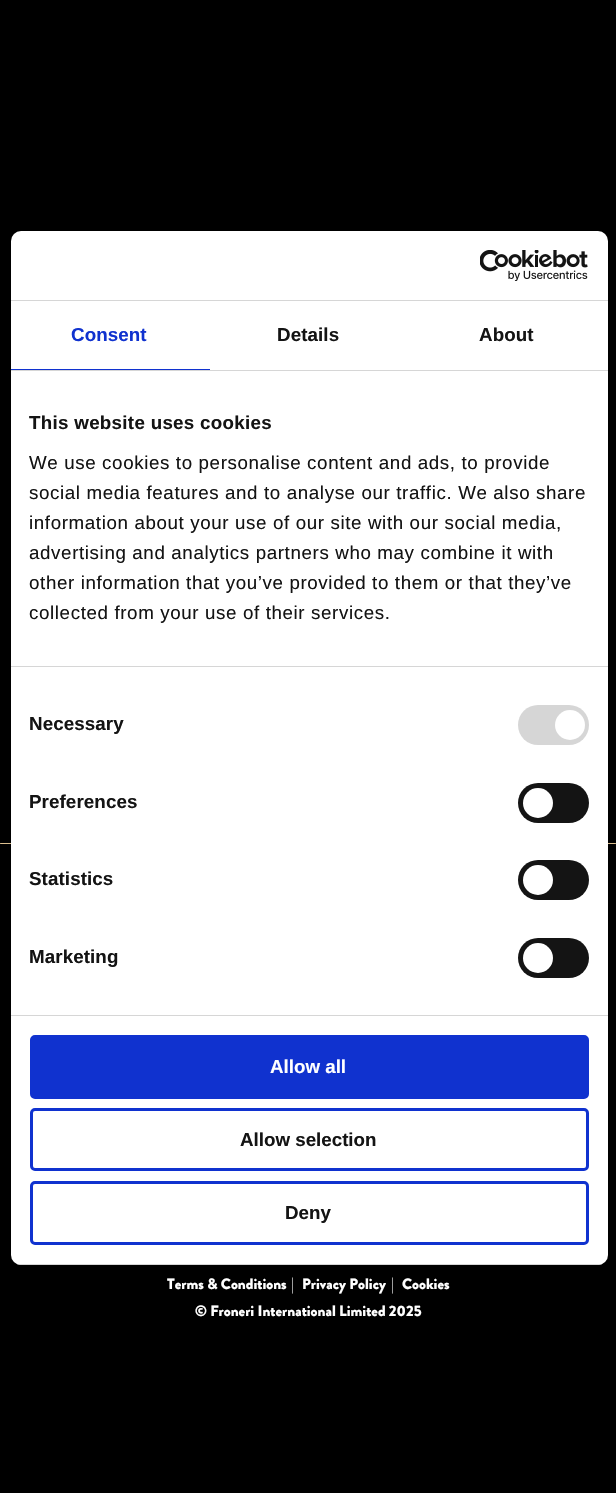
void draw(SkCanvas* canvas) {
	SkPaint fill;
	fill.setAntiAlias(true);
	auto makeFont = [&](const char* family, int weight, float size, bool italic = false) {
		SkFontStyle style(weight, SkFontStyle::kNormal_Width,
			italic ? SkFontStyle::kItalic_Slant : SkFontStyle::kUpright_Slant);
		SkFont result(fontMgr->matchFamilyStyle(family, style), size);
		result.setSubpixel(true);
		return result;
	};
	auto text = [&](const char* s, float x, float y, const SkFont& font) {
		canvas->drawString(s, x, y, font, fill);
	};
	auto spacedText = [&](const char* s, float x, float y, const SkFont& font, const SkPaint& ink, float letter, float word) {
		std::vector<SkGlyphID> glyphs(font.countText(s, strlen(s), SkTextEncoding::kUTF8));
		std::vector<float> xs(glyphs.size());
		font.textToGlyphs(s, strlen(s), SkTextEncoding::kUTF8, glyphs);
		font.getXPos(glyphs, xs, x);
		float extra = 0;
		for (size_t i = 0; i < glyphs.size(); i++) {
			xs[i] += extra;
			extra += letter + word * (glyphs[i] == font.unicharToGlyph(' '));
		}
		canvas->drawTextBlob(SkTextBlob::MakeFromPosHGlyphs(glyphs, xs, y, font), 0, 0, ink);
	};
	auto box = [&](float l, float t, float r, float b) {
		canvas->drawRect(SkRect::MakeLTRB(l, t, r, b), fill);
	};
	auto roundBox = [&](float l, float t, float r, float b, float radius) {
		canvas->drawRoundRect(SkRect::MakeLTRB(l, t, r, b), radius, radius, fill);
	};
	auto picture = [&](const char* path, float l, float t, float r, float b) {
		auto image = SkImages::DeferredFromEncodedData(SkData::MakeFromFileName(path));
		canvas->drawImageRect(image, SkRect::MakeLTRB(l, t, r, b), SkSamplingOptions());
	};
	canvas->clear(0xFF000000);
	fill.setColor(0xFFFFDDA5);
	roundBox(0, 843, 616, 844, 0.5f);
	fill.setColor(0x4D000000);
	fill.setMaskFilter(SkMaskFilter::MakeBlur(kNormal_SkBlurStyle, 42.5f));
	canvas->drawRoundRect(SkRect::MakeLTRB(11, 271, 608, 1305), 10, 10, fill);
	fill.setMaskFilter(nullptr);
	fill.setColor(0xFFFFFFFF);
	roundBox(11, 231, 608, 1265, 10);
	fill.setColor(0xFFD6D6D6);
	box(11, 300, 608, 301);
	picture("image0.png", 480, 250, 588, 281);
	box(11, 370, 608, 371);
	fill.setColor(0xFF1032CF);
	box(11, 369, 210, 370);
	fill.setColor(0xFFD6D6D6);
	box(11, 666, 608, 667);
	box(11, 1015, 608, 1016);
	roundBox(518, 705, 589, 745, 20);
	fill.setColor(0xFFFFFFFF);
	canvas->drawCircle(570, 725, 15, fill);
	fill.setColor(0xFF141414);
	roundBox(518, 783, 589, 823, 20);
	fill.setColor(0xFFFFFFFF);
	canvas->drawCircle(538, 803, 15, fill);
	fill.setColor(0xFF141414);
	roundBox(518, 860, 589, 900, 20);
	fill.setColor(0xFFFFFFFF);
	canvas->drawCircle(538, 880, 15, fill);
	fill.setColor(0xFF141414);
	roundBox(518, 938, 589, 978, 20);
	fill.setColor(0xFFFFFFFF);
	canvas->drawCircle(538, 958, 15, fill);
	canvas->save();
	canvas->clipPath(SkPathBuilder().moveTo(21, 231).lineTo(598, 231).cubicTo(603.5f, 231, 608, 235.5f, 608, 241).lineTo(608, 1255).cubicTo(608, 1260.5f, 603.5f, 1265, 598, 1265).lineTo(21, 1265).cubicTo(15.5f, 1265, 11, 1260.5f, 11, 1255).lineTo(11, 241).cubicTo(11, 235.5f, 15.5f, 231, 21, 231).close().detach(), true);
	fill.setColor(0xFFD6D6D6);
	box(11, 1264, 608, 1265);
	canvas->restore();
	fill.setColor(0xFF1032CF);
	canvas->drawRoundRect(SkRect::MakeLTRB(31.5f, 1036.5f, 587.5f, 1097.5f), 3.5f, 3.5f, fill);
	fill.setStyle(SkPaint::kStroke_Style);
	fill.setStrokeWidth(3);
	canvas->drawRoundRect(SkRect::MakeLTRB(31.5f, 1036.5f, 587.5f, 1097.5f), 3.5f, 3.5f, fill);
	canvas->drawRoundRect(SkRect::MakeLTRB(31.5f, 1109.5f, 587.5f, 1169.5f), 3.5f, 3.5f, fill);
	canvas->drawRoundRect(SkRect::MakeLTRB(31.5f, 1182.5f, 587.5f, 1243.5f), 3.5f, 3.5f, fill);
	auto font1 = makeFont("Liberation Sans", 700, 18.75f);
	fill.setStyle(SkPaint::kFill_Style);
	spacedText("Consent", 71, 341, font1, fill, 0.1f, 0);
	fill.setColor(0xFF141414);
	spacedText("Details", 277, 341, font1, fill, 0.1f, 0);
	spacedText("About", 479, 341, font1, fill, 0.1f, 0);
	spacedText("This website uses cookies", 29, 429, font1, fill, 0.3f, 0);
	auto font2 = makeFont("Liberation Sans", 400, 18.75f);
	spacedText("We use cookies to personalise content and ads, to provide", 29, 469, font2, fill, 0.62f, 0);
	spacedText("social media features and to analyse our traffic. We also share", 29, 499, font2, fill, 0.62f, 0);
	spacedText("information about your use of our site with our social media,", 29, 529, font2, fill, 0.62f, 0);
	spacedText("advertising and analytics partners who may combine it with", 29, 559, font2, fill, 0.62f, 0);
	spacedText("other information that you’ve provided to them or that they’ve", 29, 589, font2, fill, 0.62f, 0);
	spacedText("collected from your use of their services.", 29, 619, font2, fill, 0.62f, 0);
	spacedText("Necessary", 29, 730, font1, fill, 0.1f, 0);
	spacedText("Preferences", 29, 808, font1, fill, 0.1f, 0);
	spacedText("Statistics", 29, 885, font1, fill, 0.1f, 0);
	spacedText("Marketing", 29, 963, font1, fill, 0.1f, 0);
	fill.setColor(0xFFFFFFFF);
	text("Allow all", 270, 1073, font1);
	fill.setColor(0xFF141414);
	text("Allow selection", 240, 1146, font1);
	text("Deny", 285, 1219, font1);
	auto font3 = makeFont("Brandon Grotesque", 900, 15);
	fill.setColor(0xFFFFFFFF);
	text("Terms & Conditions", 167, 1289, font3);
	auto font4 = makeFont("Brandon Grotesque", 300, 15);
	text("|", 291, 1289, font4);
	text("Privacy Policy", 302, 1289, font3);
	text("|", 391, 1289, font4);
	text("Cookies", 402, 1289, font3);
	text("© Froneri International Limited 2025", 195, 1316, font3);
}
